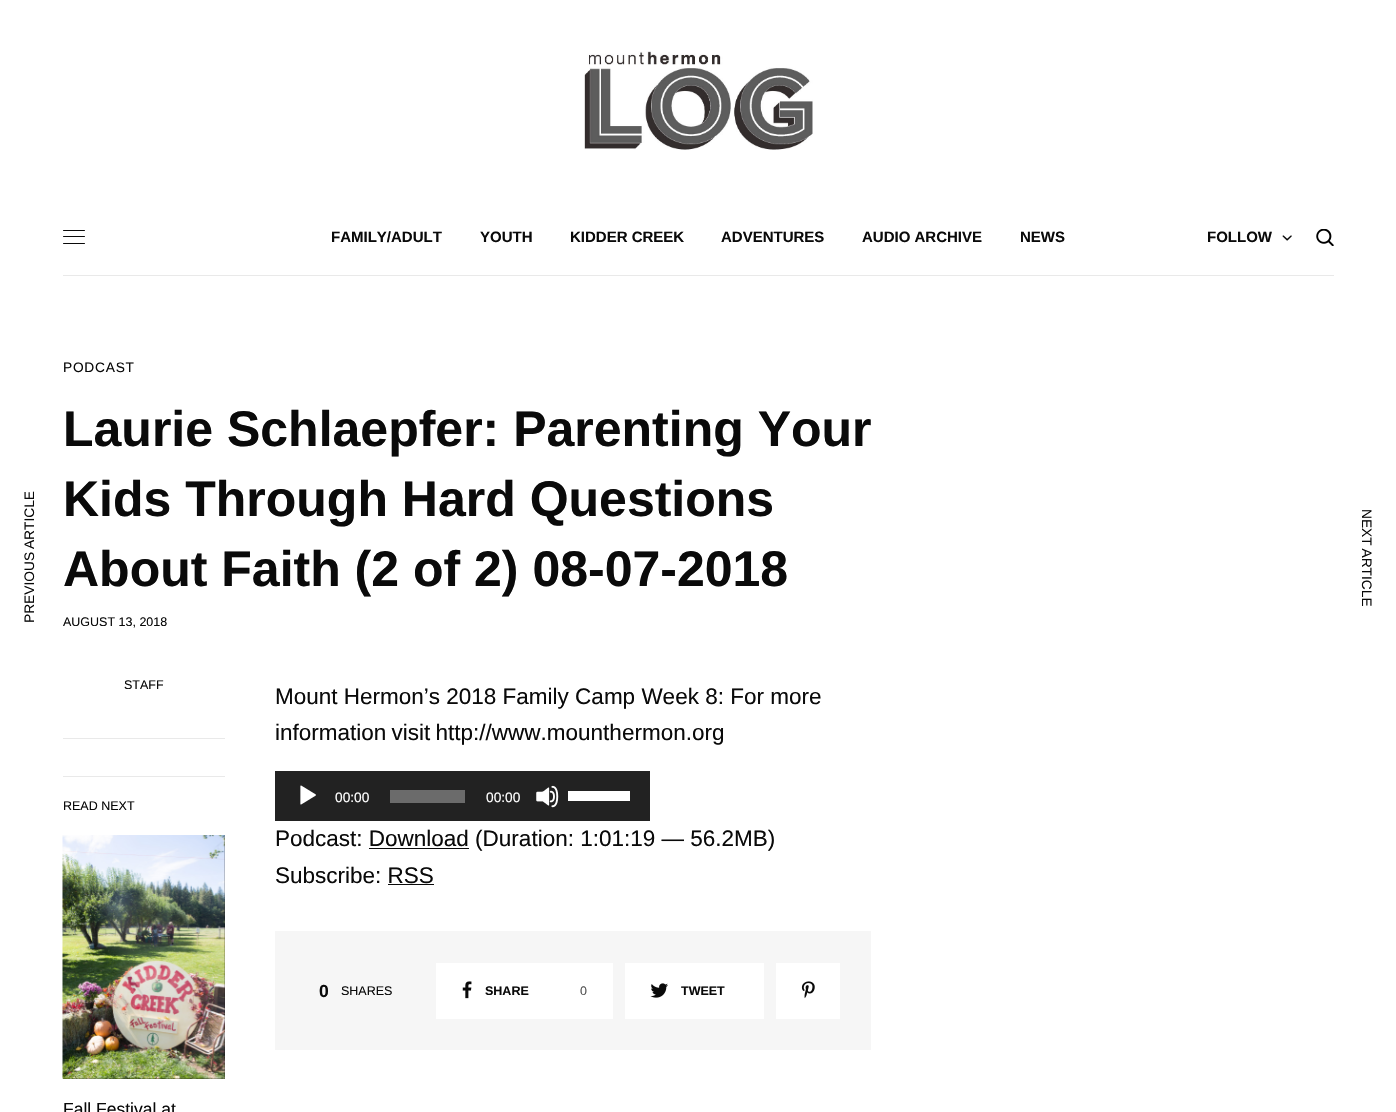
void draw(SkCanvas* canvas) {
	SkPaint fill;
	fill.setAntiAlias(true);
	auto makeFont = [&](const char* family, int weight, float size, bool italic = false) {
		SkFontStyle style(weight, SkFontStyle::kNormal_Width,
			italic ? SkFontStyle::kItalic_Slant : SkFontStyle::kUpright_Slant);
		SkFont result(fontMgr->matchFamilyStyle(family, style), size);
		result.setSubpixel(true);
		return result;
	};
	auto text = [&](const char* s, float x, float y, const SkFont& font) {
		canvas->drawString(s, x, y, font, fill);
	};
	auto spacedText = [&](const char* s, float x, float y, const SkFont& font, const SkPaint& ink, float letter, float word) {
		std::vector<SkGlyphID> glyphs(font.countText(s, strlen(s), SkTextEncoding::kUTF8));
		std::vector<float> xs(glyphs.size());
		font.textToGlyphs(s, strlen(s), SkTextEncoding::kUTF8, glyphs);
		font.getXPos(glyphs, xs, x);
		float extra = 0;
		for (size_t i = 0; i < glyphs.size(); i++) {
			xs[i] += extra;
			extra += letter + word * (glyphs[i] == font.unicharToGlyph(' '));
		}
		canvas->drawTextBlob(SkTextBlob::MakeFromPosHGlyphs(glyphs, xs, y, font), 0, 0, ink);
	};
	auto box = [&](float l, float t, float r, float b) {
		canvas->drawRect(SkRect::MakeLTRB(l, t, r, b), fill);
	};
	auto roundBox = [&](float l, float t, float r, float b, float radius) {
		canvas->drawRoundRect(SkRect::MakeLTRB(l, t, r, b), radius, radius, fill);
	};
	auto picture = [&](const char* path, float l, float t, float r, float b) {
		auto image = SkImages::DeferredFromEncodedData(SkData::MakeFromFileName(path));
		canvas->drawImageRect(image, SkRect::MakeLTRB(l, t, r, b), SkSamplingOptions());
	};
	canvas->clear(0xFFFFFFFF);
	picture("image0.png", 584, 51, 813, 150);
	fill.setColor(0xFFE9E9E9);
	box(63, 275, 1334, 276);
	fill.setColor(0xFF0A0A0A);
	roundBox(63, 230, 85, 231, 0.5f);
	roundBox(63, 236, 85, 237, 0.5f);
	roundBox(63, 243, 85, 244, 0.5f);
	picture("image1.png", 1282, 235, 1292, 241);
	picture("image2.png", 1316, 229, 1334, 246);
	fill.setColor(0xFFE9E9E9);
	box(63, 738, 225, 739);
	box(63, 776, 225, 777);
	fill.setColor(0xFF0A0A0A);
	box(63, 835, 225, 1079);
	picture("image3.png", 62, 835, 225, 1079);
	fill.setColor(0xFF222222);
	box(275, 771, 650, 821);
	picture("image4.png", 300, 785, 316, 805);
	fill.setColor(0xFF6B6B6B);
	box(390, 790, 465, 803);
	picture("image5.png", 536, 785, 559, 808);
	fill.setColor(0xFFFFFFFF);
	box(568, 791, 630, 801);
	fill.setColor(0xFF0A0A0A);
	box(369, 848, 469, 849);
	box(388, 884, 434, 885);
	fill.setColor(0xFFF6F6F6);
	box(275, 931, 871, 1050);
	fill.setColor(0xFFFFFFFF);
	box(436, 963, 613, 1019);
	picture("image6.png", 462, 981, 472, 999);
	box(625, 963, 764, 1019);
	picture("image7.png", 650, 983, 668, 998);
	box(776, 963, 840, 1019);
	picture("image8.png", 801, 981, 815, 999);
	auto font1 = makeFont("Liberation Sans", 700, 15);
	fill.setColor(0xFF0A0A0A);
	text("FAMILY/ADULT", 331, 242, font1);
	text("YOUTH", 480, 242, font1);
	text("KIDDER CREEK", 570, 242, font1);
	text("ADVENTURES", 721, 242, font1);
	text("AUDIO ARCHIVE", 862, 242, font1);
	text("NEWS", 1020, 242, font1);
	text("FOLLOW", 1207, 242, font1);
	auto font2 = makeFont("Liberation Sans", 400, 13.75f);
	canvas->save();
	canvas->rotate(-90, 34, 623);
	spacedText("PREVIOUS ARTICLE", 34, 623, font2, fill, 0, -1);
	canvas->restore();
	spacedText("PODCAST", 63, 372, font2, fill, 0.75f, 0);
	auto font3 = makeFont("Liberation Sans", 700, 50);
	text("Laurie Schlaepfer: Parenting Your", 63, 446, font3);
	text("Kids Through Hard Questions", 63, 516, font3);
	text("About Faith (2 of 2) 08-07-2018", 63, 586, font3);
	auto font4 = makeFont("Liberation Sans", 400, 12.5f);
	text("AUGUST 13, 2018", 63, 626, font4);
	text("STAFF", 124, 689, font4);
	text("READ NEXT", 63, 810, font4);
	auto font5 = makeFont("Liberation Sans", 400, 17.5f);
	text("Fall Festival at", 63, 1115, font5);
	auto font6 = makeFont("Liberation Sans", 400, 22.5f);
	text("Mount Hermon’s 2018 Family Camp Week 8: For more", 275, 704, font6);
	spacedText("information visit http://www.mounthermon.org", 275, 740, font6, fill, 0, -1);
	fill.setColor(0xFFFFFFFF);
	text("00:00", 335, 802, font2);
	text("00:00", 486, 802, font2);
	fill.setColor(0xFF0A0A0A);
	text("Podcast: Download (Duration: 1:01:19 — 56.2MB)", 275, 846, font6);
	text("Subscribe: RSS", 275, 883, font6);
	auto font7 = makeFont("Liberation Sans", 700, 17.5f);
	text("0", 319, 997, font7);
	text("SHARES", 341, 995, font4);
	auto font8 = makeFont("Liberation Sans", 700, 12.5f);
	text("SHARE", 485, 995, font8);
	fill.setColor(0xFF545454);
	text("0", 580, 995, font4);
	fill.setColor(0xFF0A0A0A);
	text("TWEET", 681, 995, font8);
	canvas->save();
	canvas->rotate(90, 1362, 509);
	spacedText("NEXT ARTICLE", 1362, 509, font2, fill, 0, -1);
	canvas->restore();
}
